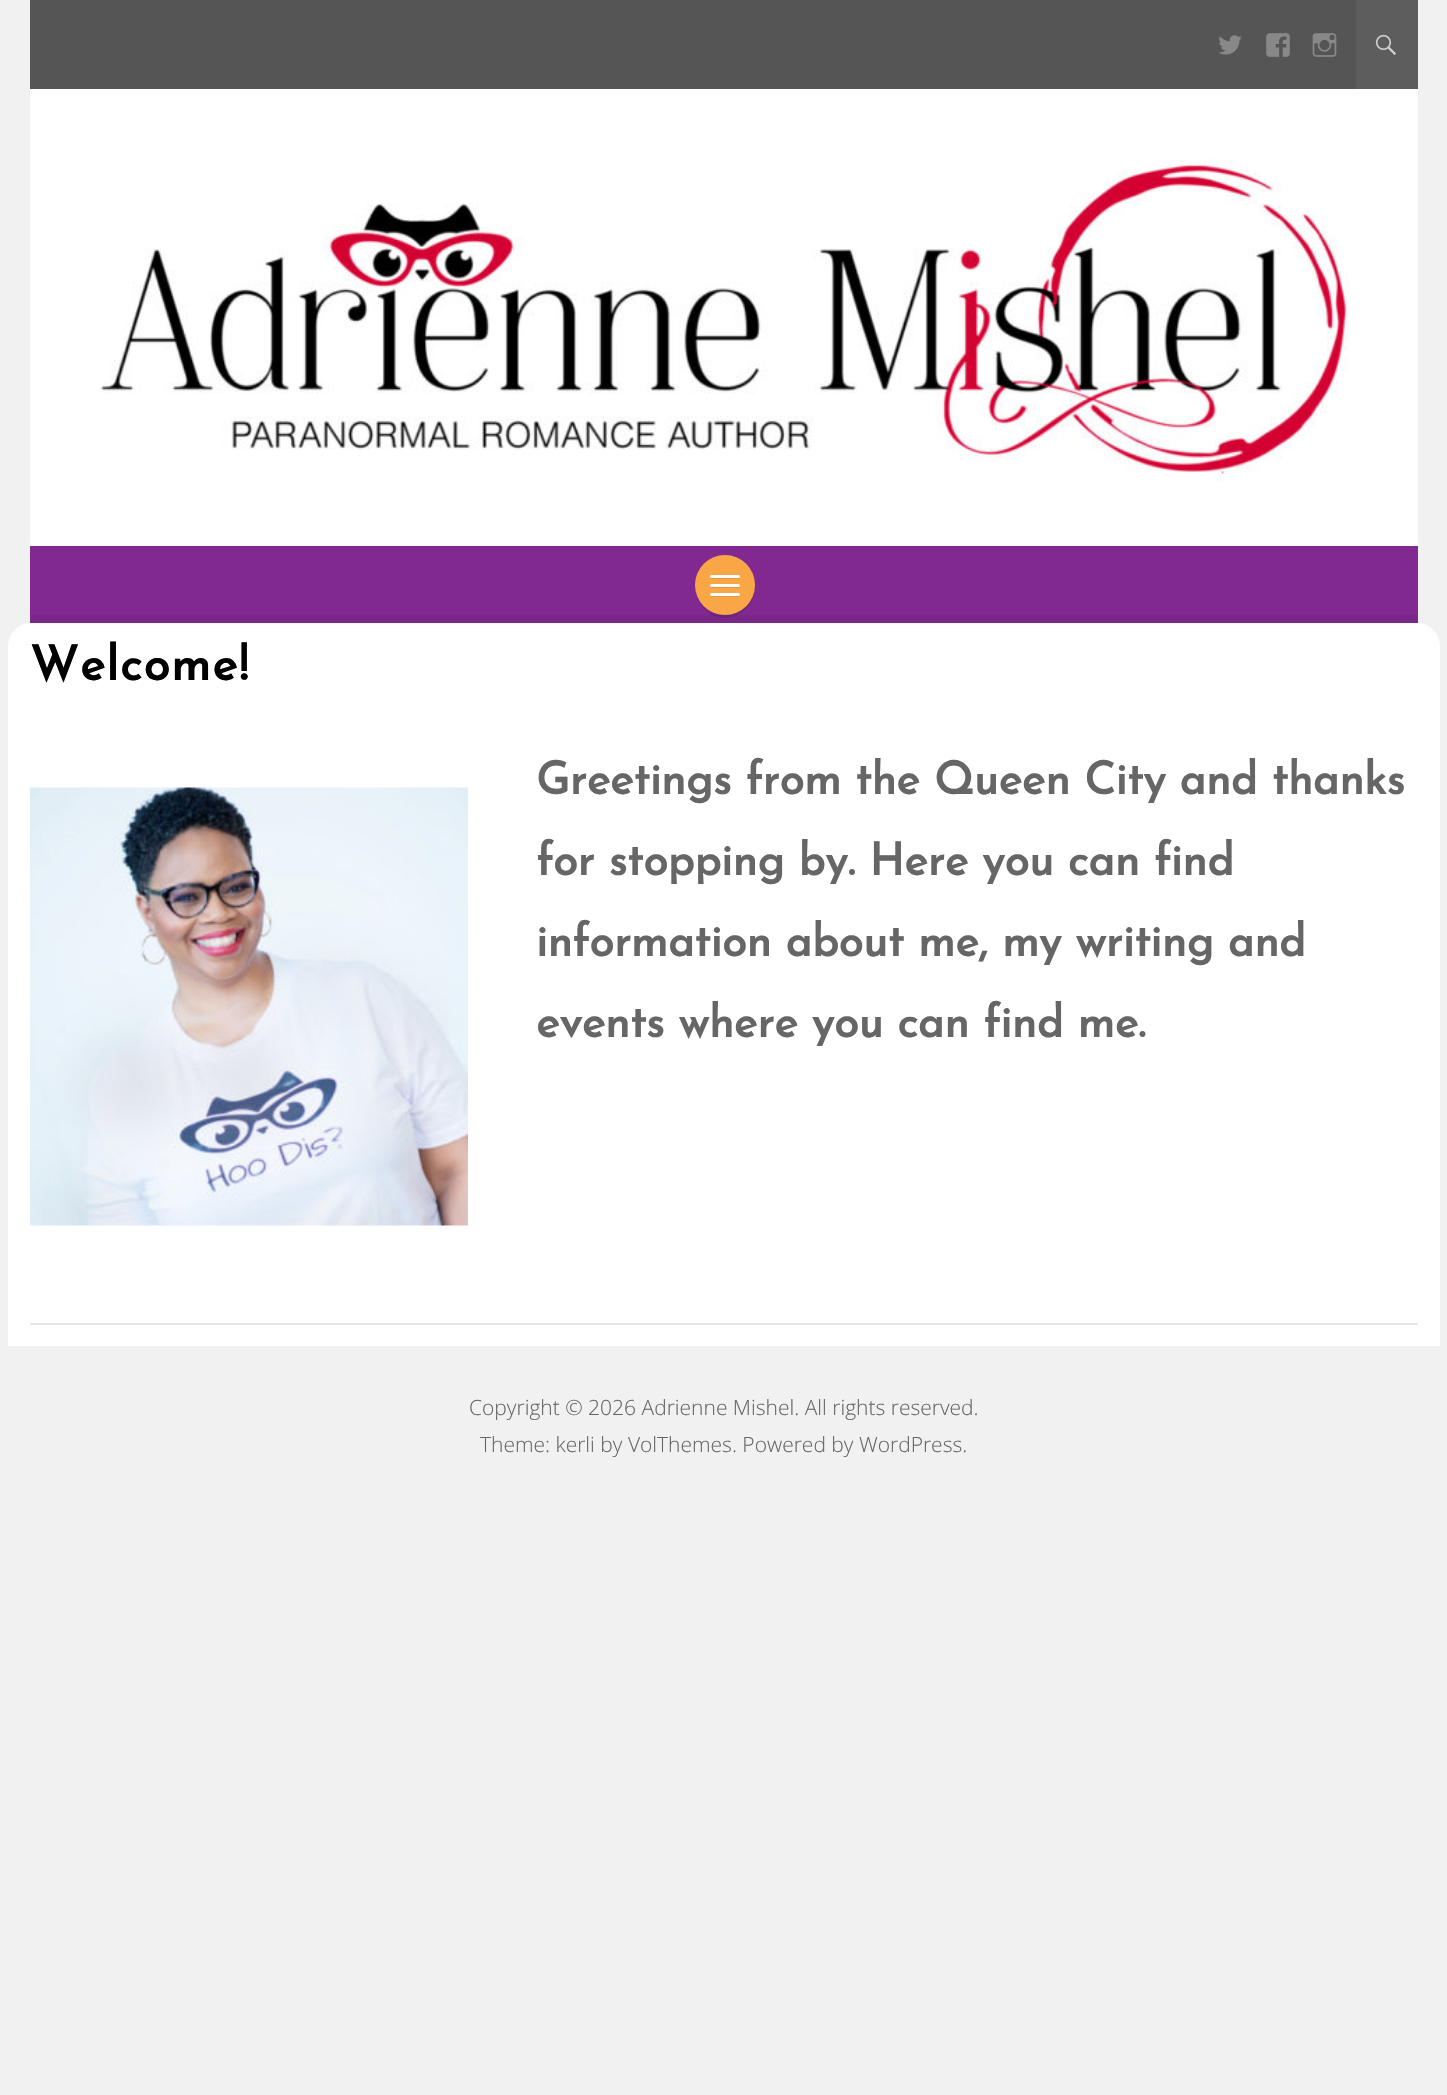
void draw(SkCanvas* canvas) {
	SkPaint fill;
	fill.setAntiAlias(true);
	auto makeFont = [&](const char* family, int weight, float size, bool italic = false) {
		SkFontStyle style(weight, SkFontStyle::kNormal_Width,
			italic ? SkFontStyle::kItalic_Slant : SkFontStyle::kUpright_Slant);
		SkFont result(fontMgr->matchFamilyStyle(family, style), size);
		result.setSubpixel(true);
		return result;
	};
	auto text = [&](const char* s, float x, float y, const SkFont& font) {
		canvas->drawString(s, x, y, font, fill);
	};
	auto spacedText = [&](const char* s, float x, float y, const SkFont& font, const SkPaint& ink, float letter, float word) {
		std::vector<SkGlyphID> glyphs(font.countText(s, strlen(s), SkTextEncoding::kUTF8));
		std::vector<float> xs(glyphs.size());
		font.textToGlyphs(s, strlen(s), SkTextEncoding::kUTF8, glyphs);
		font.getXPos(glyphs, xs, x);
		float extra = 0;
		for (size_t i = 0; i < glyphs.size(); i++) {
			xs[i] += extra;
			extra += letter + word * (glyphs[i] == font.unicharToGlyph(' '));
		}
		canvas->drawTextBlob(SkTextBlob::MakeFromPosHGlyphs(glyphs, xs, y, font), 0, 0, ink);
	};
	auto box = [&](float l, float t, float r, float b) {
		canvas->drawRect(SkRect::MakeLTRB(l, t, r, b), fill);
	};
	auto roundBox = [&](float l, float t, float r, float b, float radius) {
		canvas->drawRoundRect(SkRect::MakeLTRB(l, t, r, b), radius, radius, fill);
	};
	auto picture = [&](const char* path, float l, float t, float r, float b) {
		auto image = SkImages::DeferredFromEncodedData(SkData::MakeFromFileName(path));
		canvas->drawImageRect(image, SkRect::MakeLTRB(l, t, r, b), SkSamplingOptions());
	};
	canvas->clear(0xFFF1F1F1);
	fill.setColor(0xFF555555);
	box(30, 0, 1356, 89);
	picture("image0.png", 1218, 35, 1242, 55);
	picture("image1.png", 1266, 33, 1290, 57);
	picture("image2.png", 1312, 33, 1337, 57);
	fill.setColor(0xFF5D5D5D);
	box(1356, 0, 1418, 89);
	picture("image3.png", 1375, 34, 1396, 55);
	fill.setColor(0xFFFFFFFF);
	box(30, 89, 1418, 546);
	picture("image4.png", 99, 159, 1349, 483);
	fill.setColor(0xFF812991);
	box(30, 546, 1418, 615);
	fill.setColor(0xFF792788);
	box(30, 615, 1418, 623);
	fill.setColor(0x1A000000);
	canvas->drawPath(SkPathBuilder().moveTo(695, 591).cubicTo(696, 599, 700, 605, 705, 610).cubicTo(727, 630, 760, 609, 754, 582).cubicTo(759, 619, 703, 628, 695, 591).close().detach(), fill);
	fill.setColor(0xFFF9A646);
	canvas->drawCircle(725, 585, 30, fill);
	fill.setColor(0xFFE0953F);
	canvas->drawPath(SkPathBuilder().moveTo(710, 577).cubicTo(709.5f, 580, 715.5f, 579, 716, 579).lineTo(739, 579).cubicTo(740, 578.5f, 740.5f, 577, 739.5f, 576.5f).cubicTo(739.5f, 577, 738.5f, 577.5f, 738, 577.5f).lineTo(711, 577.5f).close().detach(), fill);
	fill.setColor(0xFFFFFFFF);
	roundBox(710, 575, 740, 578, 1.5f);
	fill.setColor(0xFFE0953F);
	canvas->drawPath(SkPathBuilder().moveTo(710, 586).cubicTo(709.5f, 589, 715.5f, 588, 716, 588).lineTo(739, 588).cubicTo(740, 587.5f, 740.5f, 586, 739.5f, 585.5f).cubicTo(739.5f, 586, 738.5f, 586.5f, 738, 586.5f).lineTo(711, 586.5f).close().detach(), fill);
	fill.setColor(0xFFFFFFFF);
	roundBox(710, 584, 740, 587, 1.5f);
	fill.setColor(0xFFE0953F);
	canvas->drawPath(SkPathBuilder().moveTo(710, 595).cubicTo(709.5f, 598, 715.5f, 597, 716, 597).lineTo(739, 597).cubicTo(740, 596.5f, 740.5f, 595, 739.5f, 594.5f).cubicTo(739.5f, 595, 738.5f, 595.5f, 738, 595.5f).lineTo(711, 595.5f).close().detach(), fill);
	fill.setColor(0xFFFFFFFF);
	roundBox(710, 593, 740, 596, 1.5f);
	canvas->drawPath(SkPathBuilder().moveTo(31, 623).lineTo(1417, 623).cubicTo(1429.5f, 623, 1440, 633.5f, 1440, 646).lineTo(1440, 1346).lineTo(8, 1346).lineTo(8, 646).cubicTo(8, 633.5f, 18.5f, 623, 31, 623).close().detach(), fill);
	fill.setColor(0xFFE6E6E6);
	box(30, 1323, 1418, 1325);
	picture("image5.png", 30, 787, 468, 1226);
	auto font1 = makeFont("Josefin Sans", 700, 48);
	fill.setColor(0xFF000000);
	spacedText("Welcome!", 30, 680, font1, fill, 1.5f, 0);
	auto font2 = makeFont("Josefin Sans", 700, 45);
	fill.setColor(0xFF666666);
	text("Greetings from the Queen City and thanks", 536, 794, font2);
	text("for stopping by. Here you can find", 536, 875, font2);
	text("information about me, my writing and", 536, 956, font2);
	text("events where you can find me.", 536, 1037, font2);
	auto font3 = makeFont("Open Sans", 300, 21);
	text("Copyright © 2026 Adrienne Mishel. All rights reserved.", 469, 1415, font3);
	text("Theme: kerli by VolThemes. Powered by WordPress.", 480, 1452, font3);
}
